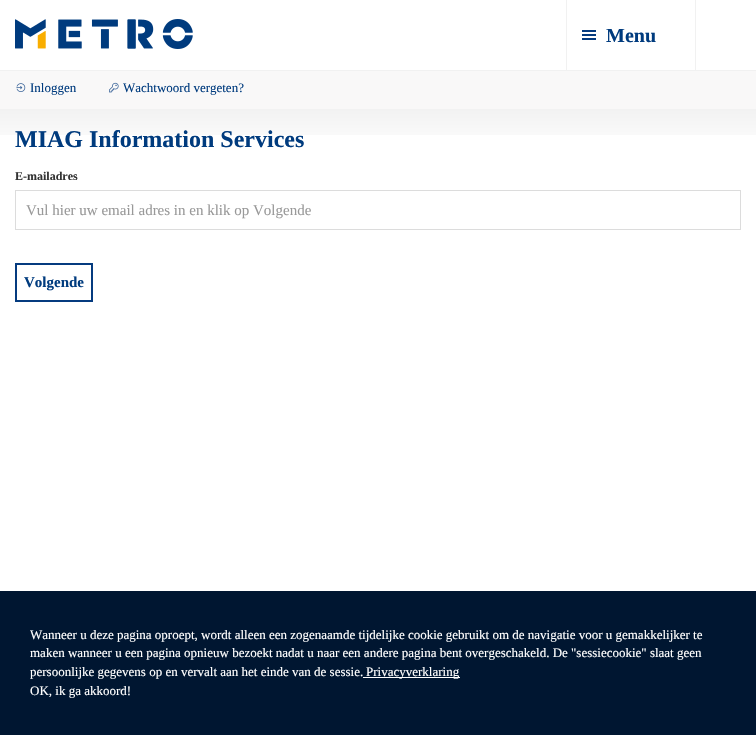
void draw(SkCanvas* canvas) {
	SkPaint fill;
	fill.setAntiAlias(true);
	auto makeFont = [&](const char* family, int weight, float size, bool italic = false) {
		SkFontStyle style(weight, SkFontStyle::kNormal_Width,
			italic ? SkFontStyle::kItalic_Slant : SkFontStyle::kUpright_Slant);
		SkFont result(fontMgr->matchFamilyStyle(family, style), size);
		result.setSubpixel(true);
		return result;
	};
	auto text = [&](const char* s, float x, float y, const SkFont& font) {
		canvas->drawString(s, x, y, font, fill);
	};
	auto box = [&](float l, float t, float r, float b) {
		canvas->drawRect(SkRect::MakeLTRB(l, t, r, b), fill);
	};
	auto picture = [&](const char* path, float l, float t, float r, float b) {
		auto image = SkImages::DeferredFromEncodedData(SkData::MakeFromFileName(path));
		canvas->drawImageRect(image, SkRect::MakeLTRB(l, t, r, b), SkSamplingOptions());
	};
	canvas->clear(0xFFFFFFFF);
	picture("image0.png", 15, 19, 193, 49);
	fill.setColor(0xFFF1F1F1);
	box(695, 0, 696, 70);
	box(566, 0, 567, 70);
	fill.setColor(0xFF053B7F);
	box(582, 30, 596, 32);
	box(582, 34, 596, 36);
	box(582, 38, 596, 40);
	fill.setColor(0xFFF9F8F8);
	box(0, 71, 756, 109);
	fill.setColor(0xFFF1F1F1);
	box(0, 70, 756, 71);
	picture("image1.png", 16, 83, 26, 92);
	picture("image2.png", 109, 82, 119, 93);
	{
		const SkColor colors[] = {0x0D000000, 0x00000000};
		const float stops[] = {0, 1};
		const SkPoint ends[] = {{378, 109}, {378, 154}};
		fill.setShader(SkGradientShader::MakeLinear(ends, colors, stops, 2, SkTileMode::kClamp));
		fill.setAlpha(255);
	}
	box(0, 109, 756, 135);
	fill.setStyle(SkPaint::kStroke_Style);
	fill.setStrokeWidth(1);
	fill.setShader(nullptr);
	fill.setColor(0xFFDCDCDC);
	canvas->drawRect(SkRect::MakeLTRB(15.5f, 190.5f, 740.5f, 229.5f), fill);
	fill.setStrokeWidth(2);
	fill.setColor(0xFF053B7F);
	canvas->drawRect(SkRect::MakeLTRB(16, 264, 92, 301), fill);
	fill.setStyle(SkPaint::kFill_Style);
	fill.setColor(0xFF001631);
	box(0, 591, 756, 735);
	fill.setColor(0xFFFFFFFF);
	box(363, 677, 460, 678);
	auto font1 = makeFont("Liberation Serif", 700, 20);
	fill.setColor(0xFF003B7E);
	text("Menu", 606, 42, font1);
	auto font2 = makeFont("Liberation Serif", 400, 13);
	text("Inloggen", 30, 92, font2);
	text("Wachtwoord vergeten?", 123, 92, font2);
	auto font3 = makeFont("Liberation Serif", 700, 24);
	text("MIAG Information Services", 15, 147, font3);
	auto font4 = makeFont("Liberation Serif", 700, 12);
	fill.setColor(0xFF333333);
	text("E-mailadres", 15, 180, font4);
	auto font5 = makeFont("Liberation Serif", 400, 15);
	fill.setColor(0xFF999999);
	text("Vul hier uw email adres in en klik op Volgende", 26, 215, font5);
	auto font6 = makeFont("Liberation Serif", 700, 15);
	fill.setColor(0xFF003B7E);
	text("Volgende", 24, 287, font6);
	fill.setColor(0xFFFFFFFF);
	text("Wanneer u deze pagina oproept, wordt alleen een zogenaamde tijdelijke cookie gebruikt om de navigatie voor u gemakkelijker te", 30, 639, font2);
	text("maken wanneer u een pagina opnieuw bezoekt nadat u naar een andere pagina bent overgeschakeld. De \"sessiecookie\" slaat geen", 30, 657, font2);
	text("persoonlijke gegevens op en vervalt aan het einde van de sessie.", 30, 676, font2);
	text("Privacyverklaring", 366, 676, font2);
	text("OK, ik ga akkoord!", 30, 695, font2);
}
